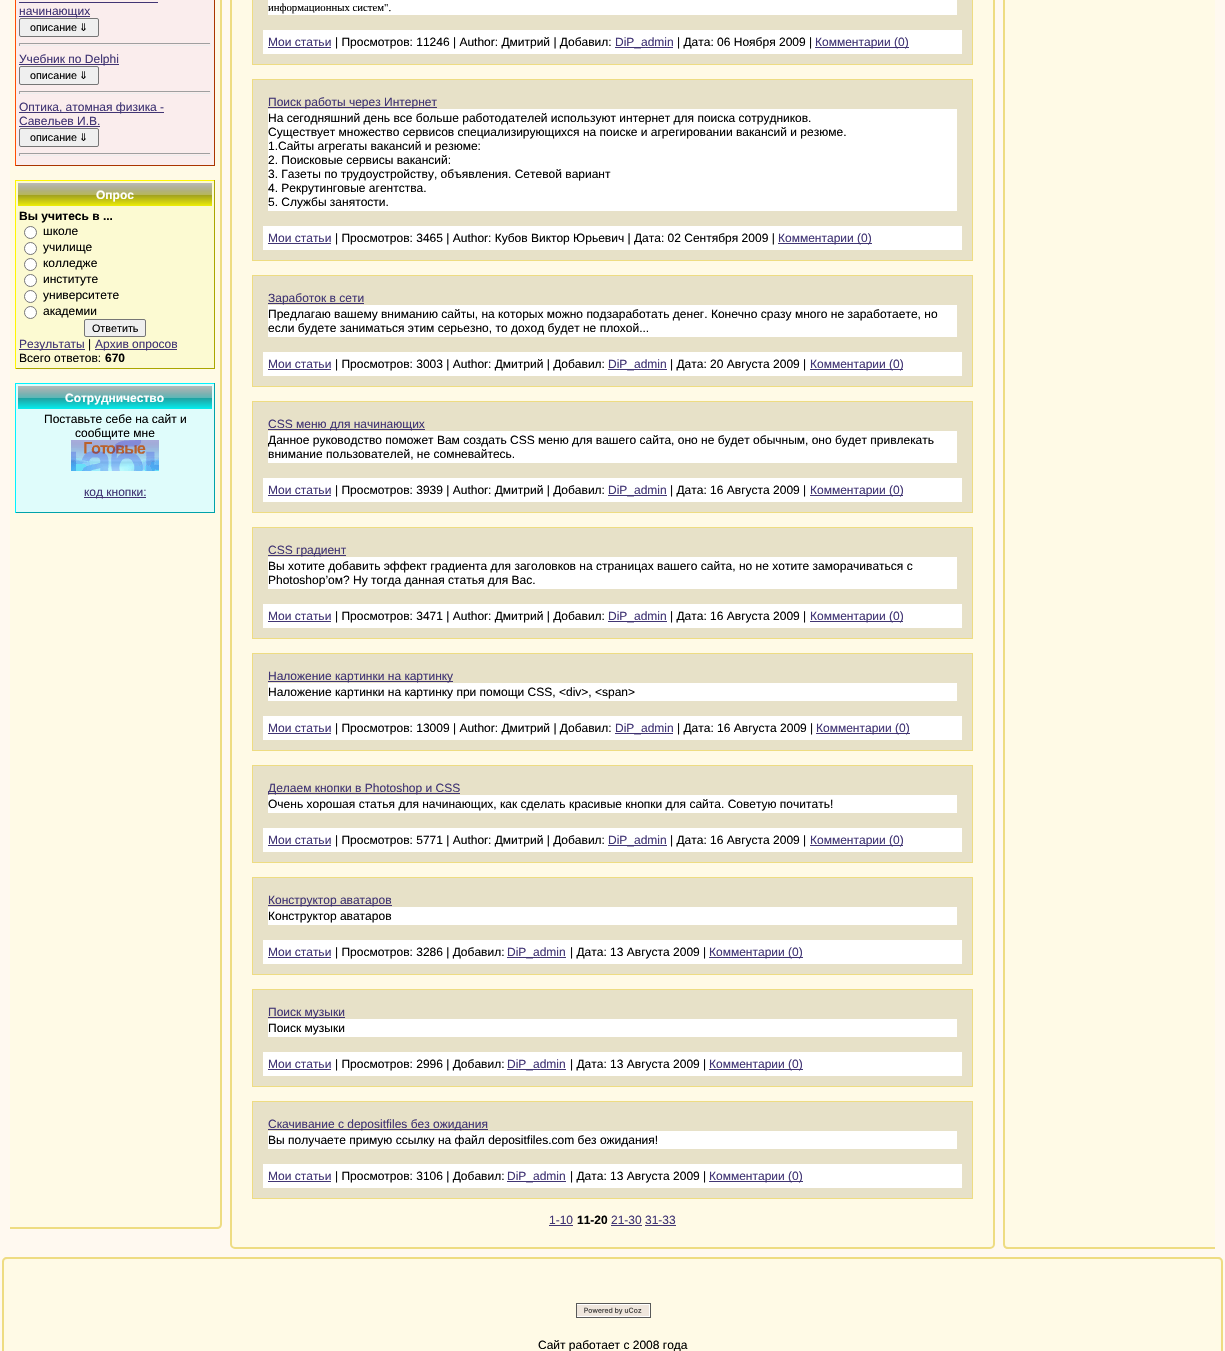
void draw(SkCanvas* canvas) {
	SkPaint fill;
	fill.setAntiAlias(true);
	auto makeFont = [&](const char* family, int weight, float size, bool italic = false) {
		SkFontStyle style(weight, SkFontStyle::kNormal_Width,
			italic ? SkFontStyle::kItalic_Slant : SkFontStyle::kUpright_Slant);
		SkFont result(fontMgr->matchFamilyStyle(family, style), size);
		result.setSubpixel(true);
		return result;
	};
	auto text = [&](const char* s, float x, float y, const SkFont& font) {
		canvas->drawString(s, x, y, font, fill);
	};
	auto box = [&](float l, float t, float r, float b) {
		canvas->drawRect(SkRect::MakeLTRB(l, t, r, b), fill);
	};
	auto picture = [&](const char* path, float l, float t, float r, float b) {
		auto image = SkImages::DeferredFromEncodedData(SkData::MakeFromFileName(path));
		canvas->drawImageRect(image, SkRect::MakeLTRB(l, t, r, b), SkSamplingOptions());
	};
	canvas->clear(0xFFFFF9F0);
	fill.setColor(0xFFFFFAE6);
	canvas->drawPath(SkPathBuilder().moveTo(10, -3).lineTo(217, -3).cubicTo(218.5f, -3, 220, -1.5f, 220, 0).lineTo(220, 1224).cubicTo(220, 1225.5f, 218.5f, 1227, 217, 1227).lineTo(10, 1227).close().detach(), fill);
	fill.setColor(0xFFEEDC82);
	canvas->drawPath(SkPathBuilder(SkPathFillType::kEvenOdd).moveTo(10, -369).lineTo(217, -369).cubicTo(220, -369, 222, -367, 222, -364).lineTo(222, 1224).cubicTo(222, 1227, 220, 1229, 217, 1229).lineTo(10, 1229).close().moveTo(10, -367).lineTo(217, -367).cubicTo(219, -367, 220, -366, 220, -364).lineTo(220, 1224).cubicTo(220, 1226, 219, 1227, 217, 1227).lineTo(10, 1227).close().detach(), fill);
	fill.setColor(0xFFFAEDED);
	box(16, 0, 214, 165);
	fill.setColor(0xFFAA3500);
	box(214, 0, 215, 166);
	box(15, 165, 215, 166);
	fill.setColor(0xFFFF4F00);
	box(15, 0, 16, 166);
	fill.setColor(0xFF413574);
	box(19, 2, 158, 3);
	box(19, 16, 90, 17);
	fill.setColor(0xFFEFEFEF);
	canvas->drawRoundRect(SkRect::MakeLTRB(19.5f, 18.5f, 98.5f, 36.5f), 1.5f, 1.5f, fill);
	fill.setStyle(SkPaint::kStroke_Style);
	fill.setStrokeWidth(1);
	fill.setColor(0xFF767676);
	canvas->drawRoundRect(SkRect::MakeLTRB(19.5f, 18.5f, 98.5f, 36.5f), 1.5f, 1.5f, fill);
	fill.setStyle(SkPaint::kFill_Style);
	fill.setColor(0xFF9F9F9F);
	box(19, 43, 211, 44);
	fill.setColor(0xFFEEEEEE);
	box(210, 43, 211, 46);
	box(19, 45, 211, 46);
	fill.setColor(0xFF9F9F9F);
	box(19, 43, 20, 46);
	fill.setColor(0xFF413574);
	box(19, 64, 119, 65);
	fill.setColor(0xFFEFEFEF);
	canvas->drawRoundRect(SkRect::MakeLTRB(19.5f, 66.5f, 98.5f, 84.5f), 1.5f, 1.5f, fill);
	fill.setStyle(SkPaint::kStroke_Style);
	fill.setColor(0xFF767676);
	canvas->drawRoundRect(SkRect::MakeLTRB(19.5f, 66.5f, 98.5f, 84.5f), 1.5f, 1.5f, fill);
	fill.setStyle(SkPaint::kFill_Style);
	fill.setColor(0xFF9F9F9F);
	box(19, 91, 211, 92);
	fill.setColor(0xFFEEEEEE);
	box(210, 91, 211, 94);
	box(19, 93, 211, 94);
	fill.setColor(0xFF9F9F9F);
	box(19, 91, 20, 94);
	fill.setColor(0xFF413574);
	box(19, 112, 164, 113);
	box(19, 126, 100, 127);
	fill.setColor(0xFFEFEFEF);
	canvas->drawRoundRect(SkRect::MakeLTRB(19.5f, 128.5f, 98.5f, 146.5f), 1.5f, 1.5f, fill);
	fill.setStyle(SkPaint::kStroke_Style);
	fill.setColor(0xFF767676);
	canvas->drawRoundRect(SkRect::MakeLTRB(19.5f, 128.5f, 98.5f, 146.5f), 1.5f, 1.5f, fill);
	fill.setStyle(SkPaint::kFill_Style);
	fill.setColor(0xFF9F9F9F);
	box(19, 153, 211, 154);
	fill.setColor(0xFFEEEEEE);
	box(210, 153, 211, 156);
	box(19, 155, 211, 156);
	fill.setColor(0xFF9F9F9F);
	box(19, 153, 20, 156);
	fill.setColor(0xFFFCFAD2);
	box(16, 181, 214, 368);
	fill.setColor(0xFFFFF700);
	box(15, 180, 215, 181);
	fill.setColor(0xFFAAA500);
	box(214, 180, 215, 369);
	box(15, 368, 215, 369);
	fill.setColor(0xFFFFF700);
	box(15, 180, 16, 369);
	picture("image0.png", 18, 183, 212, 206);
	fill.setColor(0xFFFFFFFF);
	canvas->drawCircle(30.5f, 232.5f, 6, fill);
	fill.setStyle(SkPaint::kStroke_Style);
	fill.setColor(0xFF767676);
	canvas->drawCircle(30.5f, 232.5f, 6, fill);
	fill.setStyle(SkPaint::kFill_Style);
	fill.setColor(0xFFFFFFFF);
	canvas->drawCircle(30.5f, 248.5f, 6, fill);
	fill.setStyle(SkPaint::kStroke_Style);
	fill.setColor(0xFF767676);
	canvas->drawCircle(30.5f, 248.5f, 6, fill);
	fill.setStyle(SkPaint::kFill_Style);
	fill.setColor(0xFFFFFFFF);
	canvas->drawCircle(30.5f, 264.5f, 6, fill);
	fill.setStyle(SkPaint::kStroke_Style);
	fill.setColor(0xFF767676);
	canvas->drawCircle(30.5f, 264.5f, 6, fill);
	fill.setStyle(SkPaint::kFill_Style);
	fill.setColor(0xFFFFFFFF);
	canvas->drawCircle(30.5f, 280.5f, 6, fill);
	fill.setStyle(SkPaint::kStroke_Style);
	fill.setColor(0xFF767676);
	canvas->drawCircle(30.5f, 280.5f, 6, fill);
	fill.setStyle(SkPaint::kFill_Style);
	fill.setColor(0xFFFFFFFF);
	canvas->drawCircle(30.5f, 296.5f, 6, fill);
	fill.setStyle(SkPaint::kStroke_Style);
	fill.setColor(0xFF767676);
	canvas->drawCircle(30.5f, 296.5f, 6, fill);
	fill.setStyle(SkPaint::kFill_Style);
	fill.setColor(0xFFFFFFFF);
	canvas->drawCircle(30.5f, 312.5f, 6, fill);
	fill.setStyle(SkPaint::kStroke_Style);
	fill.setColor(0xFF767676);
	canvas->drawCircle(30.5f, 312.5f, 6, fill);
	fill.setStyle(SkPaint::kFill_Style);
	fill.setColor(0xFFEFEFEF);
	canvas->drawRoundRect(SkRect::MakeLTRB(84.5f, 319.5f, 145.5f, 336.5f), 1.5f, 1.5f, fill);
	fill.setStyle(SkPaint::kStroke_Style);
	fill.setColor(0xFF767676);
	canvas->drawRoundRect(SkRect::MakeLTRB(84.5f, 319.5f, 145.5f, 336.5f), 1.5f, 1.5f, fill);
	fill.setStyle(SkPaint::kFill_Style);
	fill.setColor(0xFF413574);
	box(19, 349, 85, 350);
	box(95, 349, 177, 350);
	fill.setColor(0xFFDFFCFB);
	box(16, 384, 214, 512);
	fill.setColor(0xFF00F3FF);
	box(15, 383, 215, 384);
	fill.setColor(0xFF00A2AA);
	box(214, 383, 215, 513);
	box(15, 512, 215, 513);
	fill.setColor(0xFF00F3FF);
	box(15, 383, 16, 513);
	picture("image1.png", 18, 386, 212, 409);
	picture("image2.png", 71, 440, 159, 471);
	fill.setColor(0xFF413574);
	box(84, 497, 146, 498);
	fill.setColor(0xFFFFFAE6);
	canvas->drawRoundRect(SkRect::MakeLTRB(231, -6, 994, 1248), 4, 4, fill);
	fill.setStyle(SkPaint::kStroke_Style);
	fill.setStrokeWidth(2);
	fill.setColor(0xFFEEDC82);
	canvas->drawRoundRect(SkRect::MakeLTRB(231, -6, 994, 1248), 4, 4, fill);
	fill.setStyle(SkPaint::kFill_Style);
	fill.setColor(0xFFE7E1C8);
	canvas->drawRect(SkRect::MakeLTRB(252.5f, -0.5f, 972.5f, 64.5f), fill);
	fill.setStyle(SkPaint::kStroke_Style);
	fill.setStrokeWidth(1);
	fill.setColor(0xFFEEDC82);
	canvas->drawRect(SkRect::MakeLTRB(252.5f, -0.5f, 972.5f, 64.5f), fill);
	fill.setStyle(SkPaint::kFill_Style);
	fill.setColor(0xFFFFFFFF);
	box(268, 0, 957, 15);
	box(263, 30, 962, 54);
	fill.setColor(0xFF413574);
	box(268, 47, 331, 48);
	box(615, 47, 673, 48);
	box(815, 47, 909, 48);
	fill.setColor(0xFFE7E1C8);
	canvas->drawRect(SkRect::MakeLTRB(252.5f, 79.5f, 972.5f, 260.5f), fill);
	fill.setStyle(SkPaint::kStroke_Style);
	fill.setColor(0xFFEEDC82);
	canvas->drawRect(SkRect::MakeLTRB(252.5f, 79.5f, 972.5f, 260.5f), fill);
	fill.setStyle(SkPaint::kFill_Style);
	fill.setColor(0xFF413574);
	box(268, 107, 437, 108);
	fill.setColor(0xFFFFFFFF);
	box(268, 109, 957, 211);
	box(263, 226, 962, 250);
	fill.setColor(0xFF413574);
	box(268, 243, 331, 244);
	box(778, 243, 872, 244);
	fill.setColor(0xFFE7E1C8);
	canvas->drawRect(SkRect::MakeLTRB(252.5f, 275.5f, 972.5f, 386.5f), fill);
	fill.setStyle(SkPaint::kStroke_Style);
	fill.setColor(0xFFEEDC82);
	canvas->drawRect(SkRect::MakeLTRB(252.5f, 275.5f, 972.5f, 386.5f), fill);
	fill.setStyle(SkPaint::kFill_Style);
	fill.setColor(0xFF413574);
	box(268, 303, 364, 304);
	fill.setColor(0xFFFFFFFF);
	box(268, 305, 957, 337);
	box(263, 352, 962, 376);
	fill.setColor(0xFF413574);
	box(268, 369, 331, 370);
	box(608, 369, 667, 370);
	box(810, 369, 903, 370);
	fill.setColor(0xFFE7E1C8);
	canvas->drawRect(SkRect::MakeLTRB(252.5f, 401.5f, 972.5f, 512.5f), fill);
	fill.setStyle(SkPaint::kStroke_Style);
	fill.setColor(0xFFEEDC82);
	canvas->drawRect(SkRect::MakeLTRB(252.5f, 401.5f, 972.5f, 512.5f), fill);
	fill.setStyle(SkPaint::kFill_Style);
	fill.setColor(0xFF413574);
	box(268, 429, 425, 430);
	fill.setColor(0xFFFFFFFF);
	box(268, 431, 957, 463);
	box(263, 478, 962, 502);
	fill.setColor(0xFF413574);
	box(268, 495, 331, 496);
	box(608, 495, 667, 496);
	box(810, 495, 903, 496);
	fill.setColor(0xFFE7E1C8);
	canvas->drawRect(SkRect::MakeLTRB(252.5f, 527.5f, 972.5f, 638.5f), fill);
	fill.setStyle(SkPaint::kStroke_Style);
	fill.setColor(0xFFEEDC82);
	canvas->drawRect(SkRect::MakeLTRB(252.5f, 527.5f, 972.5f, 638.5f), fill);
	fill.setStyle(SkPaint::kFill_Style);
	fill.setColor(0xFF413574);
	box(268, 555, 346, 556);
	fill.setColor(0xFFFFFFFF);
	box(268, 557, 957, 589);
	box(263, 604, 962, 628);
	fill.setColor(0xFF413574);
	box(268, 621, 331, 622);
	box(608, 621, 667, 622);
	box(810, 621, 903, 622);
	fill.setColor(0xFFE7E1C8);
	canvas->drawRect(SkRect::MakeLTRB(252.5f, 653.5f, 972.5f, 750.5f), fill);
	fill.setStyle(SkPaint::kStroke_Style);
	fill.setColor(0xFFEEDC82);
	canvas->drawRect(SkRect::MakeLTRB(252.5f, 653.5f, 972.5f, 750.5f), fill);
	fill.setStyle(SkPaint::kFill_Style);
	fill.setColor(0xFF413574);
	box(268, 681, 453, 682);
	fill.setColor(0xFFFFFFFF);
	box(268, 683, 957, 701);
	box(263, 716, 962, 740);
	fill.setColor(0xFF413574);
	box(268, 733, 331, 734);
	box(615, 733, 673, 734);
	box(816, 733, 910, 734);
	fill.setColor(0xFFE7E1C8);
	canvas->drawRect(SkRect::MakeLTRB(252.5f, 765.5f, 972.5f, 862.5f), fill);
	fill.setStyle(SkPaint::kStroke_Style);
	fill.setColor(0xFFEEDC82);
	canvas->drawRect(SkRect::MakeLTRB(252.5f, 765.5f, 972.5f, 862.5f), fill);
	fill.setStyle(SkPaint::kFill_Style);
	fill.setColor(0xFF413574);
	box(268, 793, 460, 794);
	fill.setColor(0xFFFFFFFF);
	box(268, 795, 957, 813);
	box(263, 828, 962, 852);
	fill.setColor(0xFF413574);
	box(268, 845, 331, 846);
	box(608, 845, 667, 846);
	box(810, 845, 903, 846);
	fill.setColor(0xFFE7E1C8);
	canvas->drawRect(SkRect::MakeLTRB(252.5f, 877.5f, 972.5f, 974.5f), fill);
	fill.setStyle(SkPaint::kStroke_Style);
	fill.setColor(0xFFEEDC82);
	canvas->drawRect(SkRect::MakeLTRB(252.5f, 877.5f, 972.5f, 974.5f), fill);
	fill.setStyle(SkPaint::kFill_Style);
	fill.setColor(0xFF413574);
	box(268, 905, 392, 906);
	fill.setColor(0xFFFFFFFF);
	box(268, 907, 957, 925);
	box(263, 940, 962, 964);
	fill.setColor(0xFF413574);
	box(268, 957, 331, 958);
	box(507, 957, 566, 958);
	box(709, 957, 803, 958);
	fill.setColor(0xFFE7E1C8);
	canvas->drawRect(SkRect::MakeLTRB(252.5f, 989.5f, 972.5f, 1086.5f), fill);
	fill.setStyle(SkPaint::kStroke_Style);
	fill.setColor(0xFFEEDC82);
	canvas->drawRect(SkRect::MakeLTRB(252.5f, 989.5f, 972.5f, 1086.5f), fill);
	fill.setStyle(SkPaint::kFill_Style);
	fill.setColor(0xFF413574);
	box(268, 1017, 345, 1018);
	fill.setColor(0xFFFFFFFF);
	box(268, 1019, 957, 1037);
	box(263, 1052, 962, 1076);
	fill.setColor(0xFF413574);
	box(268, 1069, 331, 1070);
	box(507, 1069, 566, 1070);
	box(709, 1069, 803, 1070);
	fill.setColor(0xFFE7E1C8);
	canvas->drawRect(SkRect::MakeLTRB(252.5f, 1101.5f, 972.5f, 1198.5f), fill);
	fill.setStyle(SkPaint::kStroke_Style);
	fill.setColor(0xFFEEDC82);
	canvas->drawRect(SkRect::MakeLTRB(252.5f, 1101.5f, 972.5f, 1198.5f), fill);
	fill.setStyle(SkPaint::kFill_Style);
	fill.setColor(0xFF413574);
	box(268, 1129, 488, 1130);
	fill.setColor(0xFFFFFFFF);
	box(268, 1131, 957, 1149);
	box(263, 1164, 962, 1188);
	fill.setColor(0xFF413574);
	box(268, 1181, 331, 1182);
	box(507, 1181, 566, 1182);
	box(709, 1181, 803, 1182);
	box(549, 1225, 573, 1226);
	box(611, 1225, 642, 1226);
	box(645, 1225, 676, 1226);
	fill.setColor(0xFFFFFAE6);
	canvas->drawPath(SkPathBuilder().moveTo(1008, -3).lineTo(1215, -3).lineTo(1215, 1247).lineTo(1008, 1247).cubicTo(1006.5f, 1247, 1005, 1245.5f, 1005, 1244).lineTo(1005, 0).cubicTo(1005, -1.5f, 1006.5f, -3, 1008, -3).close().detach(), fill);
	fill.setColor(0xFFEEDC82);
	canvas->drawPath(SkPathBuilder(SkPathFillType::kEvenOdd).moveTo(1008, -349).lineTo(1215, -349).lineTo(1215, 1249).lineTo(1008, 1249).cubicTo(1005, 1249, 1003, 1247, 1003, 1244).lineTo(1003, -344).cubicTo(1003, -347, 1005, -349, 1008, -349).close().moveTo(1008, -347).lineTo(1215, -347).lineTo(1215, 1247).lineTo(1008, 1247).cubicTo(1006, 1247, 1005, 1246, 1005, 1244).lineTo(1005, -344).cubicTo(1005, -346, 1006, -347, 1008, -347).close().detach(), fill);
	fill.setColor(0xFFFFFAE6);
	canvas->drawPath(SkPathBuilder().moveTo(7, 1259).lineTo(1218, 1259).cubicTo(1220, 1259, 1221, 1260, 1221, 1262).lineTo(1221, 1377).cubicTo(1221, 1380, 1220, 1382, 1218, 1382).lineTo(7, 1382).cubicTo(5, 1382, 4, 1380, 4, 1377).lineTo(4, 1262).cubicTo(4, 1260, 5, 1259, 7, 1259).close().detach(), fill);
	fill.setColor(0xFFEEDC82);
	canvas->drawPath(SkPathBuilder(SkPathFillType::kEvenOdd).moveTo(7, 1257).lineTo(1218, 1257).cubicTo(1221, 1257, 1223, 1259, 1223, 1262).lineTo(1223, 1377).cubicTo(1223, 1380, 1221, 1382, 1218, 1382).lineTo(7, 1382).cubicTo(4, 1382, 2, 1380, 2, 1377).lineTo(2, 1262).cubicTo(2, 1259, 4, 1257, 7, 1257).close().moveTo(7, 1259).lineTo(1218, 1259).cubicTo(1220, 1259, 1221, 1260, 1221, 1262).lineTo(1221, 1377).cubicTo(1221, 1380, 1220, 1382, 1218, 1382).lineTo(7, 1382).cubicTo(5, 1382, 4, 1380, 4, 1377).lineTo(4, 1262).cubicTo(4, 1260, 5, 1259, 7, 1259).close().detach(), fill);
	picture("image3.png", 576, 1303, 651, 1318);
	auto font1 = makeFont("Liberation Sans", 400, 12);
	fill.setColor(0xFF413574);
	text("начинающих", 19, 15, font1);
	auto font2 = makeFont("Liberation Sans", 400, 10.75f);
	fill.setColor(0xFF000000);
	text("описание", 30, 31, font2);
	auto font3 = makeFont("DejaVu Sans", 400, 10.75f);
	text("⇓", 79, 31, font3);
	fill.setColor(0xFF413574);
	text("Учебник по Delphi", 19, 63, font1);
	fill.setColor(0xFF000000);
	text("описание", 30, 79, font2);
	text("⇓", 79, 79, font3);
	fill.setColor(0xFF413574);
	text("Оптика, атомная физика -", 19, 111, font1);
	text("Савельев И.В.", 19, 125, font1);
	fill.setColor(0xFF000000);
	text("описание", 30, 141, font2);
	text("⇓", 79, 141, font3);
	auto font4 = makeFont("Liberation Sans", 700, 12);
	fill.setColor(0xFFFFFFFF);
	text("Опрос", 96, 199, font4);
	fill.setColor(0xFF000000);
	text("Вы учитесь в ...", 19, 220, font4);
	text("школе", 43, 235, font1);
	text("училище", 43, 251, font1);
	text("колледже", 43, 267, font1);
	text("институте", 43, 283, font1);
	text("университете", 43, 299, font1);
	text("академии", 43, 315, font1);
	text("Ответить", 92, 332, font2);
	fill.setColor(0xFF413574);
	text("Результаты", 19, 348, font1);
	fill.setColor(0xFF000000);
	text("|", 88, 348, font1);
	fill.setColor(0xFF413574);
	text("Архив опросов", 95, 348, font1);
	fill.setColor(0xFF000000);
	text("Всего ответов:", 19, 362, font1);
	text("670", 105, 362, font4);
	fill.setColor(0xFFFFFFFF);
	text("Сотрудничество", 65, 402, font4);
	fill.setColor(0xFF000000);
	text("Поставьте себе на сайт и", 44, 423, font1);
	text("сообщите мне", 75, 437, font1);
	fill.setColor(0xFF413574);
	text("код кнопки:", 84, 496, font1);
	auto font5 = makeFont("Liberation Serif", 400, 10.75f);
	fill.setColor(0xFF000000);
	text("информационных систем\".", 268, 11, font5);
	fill.setColor(0xFF413574);
	text("Мои статьи", 268, 46, font1);
	fill.setColor(0xFF000000);
	text("| Просмотров: 11246 | Author: Дмитрий | Добавил:", 335, 46, font1);
	fill.setColor(0xFF413574);
	text("DiP_admin", 615, 46, font1);
	fill.setColor(0xFF000000);
	text("| Дата: 06 Ноября 2009 |", 677, 46, font1);
	fill.setColor(0xFF413574);
	text("Комментарии (0)", 815, 46, font1);
	text("Поиск работы через Интернет", 268, 106, font1);
	fill.setColor(0xFF000000);
	text("На сегодняшний день все больше работодателей используют интернет для поиска сотрудников.", 268, 122, font1);
	text("Существует множество сервисов специализирующихся на поиске и агрегировании вакансий и резюме.", 268, 136, font1);
	text("1.Сайты агрегаты вакансий и резюме:", 268, 150, font1);
	text("2. Поисковые сервисы вакансий:", 268, 164, font1);
	text("3. Газеты по трудоустройству, объявления. Сетевой вариант", 268, 178, font1);
	text("4. Рекрутинговые агентства.", 268, 192, font1);
	text("5. Cлужбы занятости.", 268, 206, font1);
	fill.setColor(0xFF413574);
	text("Мои статьи", 268, 242, font1);
	fill.setColor(0xFF000000);
	text("| Просмотров: 3465 | Author: Кубов Виктор Юрьевич | Дата: 02 Сентября 2009 |", 335, 242, font1);
	fill.setColor(0xFF413574);
	text("Комментарии (0)", 778, 242, font1);
	text("Заработок в сети", 268, 302, font1);
	fill.setColor(0xFF000000);
	text("Предлагаю вашему вниманию сайты, на которых можно подзаработать денег. Конечно сразу много не заработаете, но", 268, 318, font1);
	text("если будете заниматься этим серьезно, то доход будет не плохой...", 268, 332, font1);
	fill.setColor(0xFF413574);
	text("Мои статьи", 268, 368, font1);
	fill.setColor(0xFF000000);
	text("| Просмотров: 3003 | Author: Дмитрий | Добавил:", 335, 368, font1);
	fill.setColor(0xFF413574);
	text("DiP_admin", 608, 368, font1);
	fill.setColor(0xFF000000);
	text("| Дата: 20 Августа 2009 |", 670, 368, font1);
	fill.setColor(0xFF413574);
	text("Комментарии (0)", 810, 368, font1);
	text("CSS меню для начинающих", 268, 428, font1);
	fill.setColor(0xFF000000);
	text("Данное руководство поможет Вам создать CSS меню для вашего сайта, оно не будет обычным, оно будет привлекать", 268, 444, font1);
	text("внимание пользователей, не сомневайтесь.", 268, 458, font1);
	fill.setColor(0xFF413574);
	text("Мои статьи", 268, 494, font1);
	fill.setColor(0xFF000000);
	text("| Просмотров: 3939 | Author: Дмитрий | Добавил:", 335, 494, font1);
	fill.setColor(0xFF413574);
	text("DiP_admin", 608, 494, font1);
	fill.setColor(0xFF000000);
	text("| Дата: 16 Августа 2009 |", 670, 494, font1);
	fill.setColor(0xFF413574);
	text("Комментарии (0)", 810, 494, font1);
	text("CSS градиент", 268, 554, font1);
	fill.setColor(0xFF000000);
	text("Вы хотите добавить эффект градиента для заголовков на страницах вашего сайта, но не хотите заморачиваться с", 268, 570, font1);
	text("Photoshop’ом? Ну тогда данная статья для Вас.", 268, 584, font1);
	fill.setColor(0xFF413574);
	text("Мои статьи", 268, 620, font1);
	fill.setColor(0xFF000000);
	text("| Просмотров: 3471 | Author: Дмитрий | Добавил:", 335, 620, font1);
	fill.setColor(0xFF413574);
	text("DiP_admin", 608, 620, font1);
	fill.setColor(0xFF000000);
	text("| Дата: 16 Августа 2009 |", 670, 620, font1);
	fill.setColor(0xFF413574);
	text("Комментарии (0)", 810, 620, font1);
	text("Наложение картинки на картинку", 268, 680, font1);
	fill.setColor(0xFF000000);
	text("Наложение картинки на картинку при помощи CSS, <div>, <span>", 268, 696, font1);
	fill.setColor(0xFF413574);
	text("Мои статьи", 268, 732, font1);
	fill.setColor(0xFF000000);
	text("| Просмотров: 13009 | Author: Дмитрий | Добавил:", 335, 732, font1);
	fill.setColor(0xFF413574);
	text("DiP_admin", 615, 732, font1);
	fill.setColor(0xFF000000);
	text("| Дата: 16 Августа 2009 |", 677, 732, font1);
	fill.setColor(0xFF413574);
	text("Комментарии (0)", 816, 732, font1);
	text("Делаем кнопки в Photoshop и CSS", 268, 792, font1);
	fill.setColor(0xFF000000);
	text("Очень хорошая статья для начинающих, как сделать красивые кнопки для сайта. Советую почитать!", 268, 808, font1);
	fill.setColor(0xFF413574);
	text("Мои статьи", 268, 844, font1);
	fill.setColor(0xFF000000);
	text("| Просмотров: 5771 | Author: Дмитрий | Добавил:", 335, 844, font1);
	fill.setColor(0xFF413574);
	text("DiP_admin", 608, 844, font1);
	fill.setColor(0xFF000000);
	text("| Дата: 16 Августа 2009 |", 670, 844, font1);
	fill.setColor(0xFF413574);
	text("Комментарии (0)", 810, 844, font1);
	text("Конструктор аватаров", 268, 904, font1);
	fill.setColor(0xFF000000);
	text("Конструктор аватаров", 268, 920, font1);
	fill.setColor(0xFF413574);
	text("Мои статьи", 268, 956, font1);
	fill.setColor(0xFF000000);
	text("| Просмотров: 3286 | Добавил:", 335, 956, font1);
	fill.setColor(0xFF413574);
	text("DiP_admin", 507, 956, font1);
	fill.setColor(0xFF000000);
	text("| Дата: 13 Августа 2009 |", 570, 956, font1);
	fill.setColor(0xFF413574);
	text("Комментарии (0)", 709, 956, font1);
	text("Поиск музыки", 268, 1016, font1);
	fill.setColor(0xFF000000);
	text("Поиск музыки", 268, 1032, font1);
	fill.setColor(0xFF413574);
	text("Мои статьи", 268, 1068, font1);
	fill.setColor(0xFF000000);
	text("| Просмотров: 2996 | Добавил:", 335, 1068, font1);
	fill.setColor(0xFF413574);
	text("DiP_admin", 507, 1068, font1);
	fill.setColor(0xFF000000);
	text("| Дата: 13 Августа 2009 |", 570, 1068, font1);
	fill.setColor(0xFF413574);
	text("Комментарии (0)", 709, 1068, font1);
	text("Скачивание с depositfiles без ожидания", 268, 1128, font1);
	fill.setColor(0xFF000000);
	text("Вы получаете примую ссылку на файл depositfiles.com без ожидания!", 268, 1144, font1);
	fill.setColor(0xFF413574);
	text("Мои статьи", 268, 1180, font1);
	fill.setColor(0xFF000000);
	text("| Просмотров: 3106 | Добавил:", 335, 1180, font1);
	fill.setColor(0xFF413574);
	text("DiP_admin", 507, 1180, font1);
	fill.setColor(0xFF000000);
	text("| Дата: 13 Августа 2009 |", 570, 1180, font1);
	fill.setColor(0xFF413574);
	text("Комментарии (0)", 709, 1180, font1);
	text("1-10", 549, 1224, font1);
	fill.setColor(0xFF000000);
	text("11-20", 577, 1224, font4);
	fill.setColor(0xFF413574);
	text("21-30 31-33", 611, 1224, font1);
	fill.setColor(0xFF000000);
	text("Сайт работает с 2008 года", 538, 1349, font1);
}
